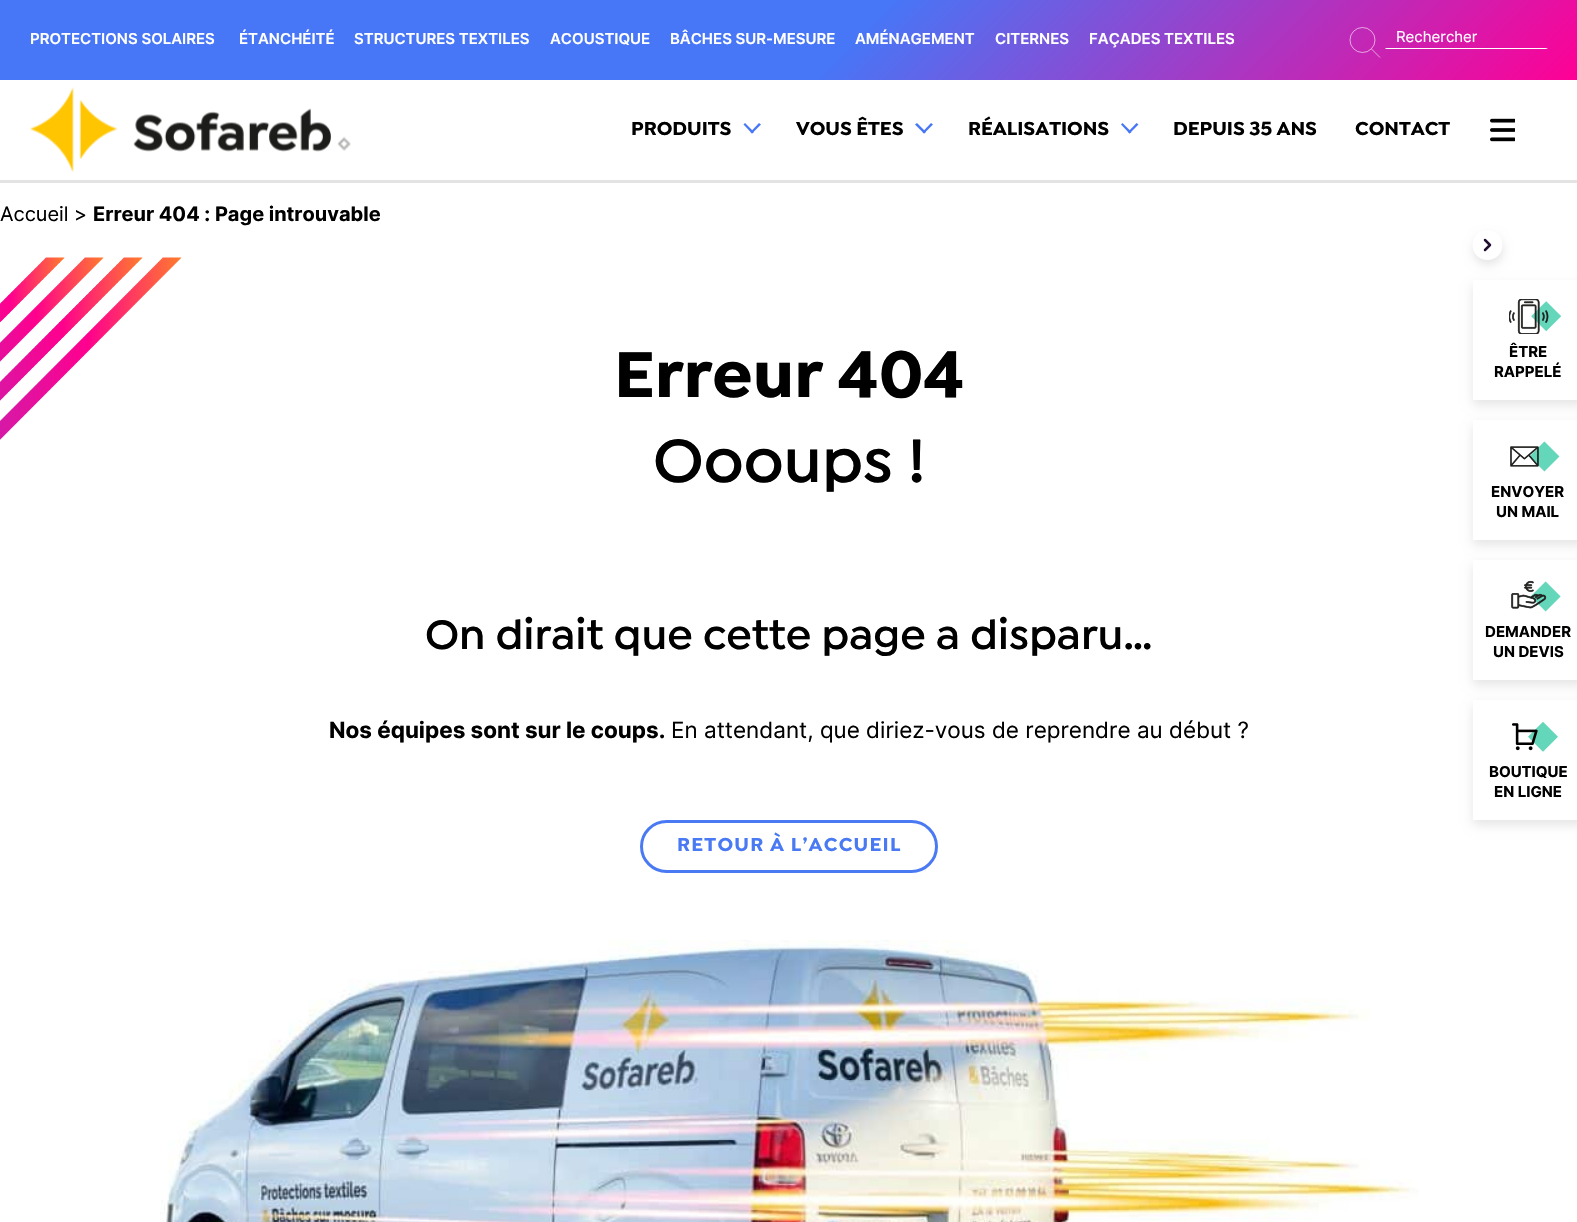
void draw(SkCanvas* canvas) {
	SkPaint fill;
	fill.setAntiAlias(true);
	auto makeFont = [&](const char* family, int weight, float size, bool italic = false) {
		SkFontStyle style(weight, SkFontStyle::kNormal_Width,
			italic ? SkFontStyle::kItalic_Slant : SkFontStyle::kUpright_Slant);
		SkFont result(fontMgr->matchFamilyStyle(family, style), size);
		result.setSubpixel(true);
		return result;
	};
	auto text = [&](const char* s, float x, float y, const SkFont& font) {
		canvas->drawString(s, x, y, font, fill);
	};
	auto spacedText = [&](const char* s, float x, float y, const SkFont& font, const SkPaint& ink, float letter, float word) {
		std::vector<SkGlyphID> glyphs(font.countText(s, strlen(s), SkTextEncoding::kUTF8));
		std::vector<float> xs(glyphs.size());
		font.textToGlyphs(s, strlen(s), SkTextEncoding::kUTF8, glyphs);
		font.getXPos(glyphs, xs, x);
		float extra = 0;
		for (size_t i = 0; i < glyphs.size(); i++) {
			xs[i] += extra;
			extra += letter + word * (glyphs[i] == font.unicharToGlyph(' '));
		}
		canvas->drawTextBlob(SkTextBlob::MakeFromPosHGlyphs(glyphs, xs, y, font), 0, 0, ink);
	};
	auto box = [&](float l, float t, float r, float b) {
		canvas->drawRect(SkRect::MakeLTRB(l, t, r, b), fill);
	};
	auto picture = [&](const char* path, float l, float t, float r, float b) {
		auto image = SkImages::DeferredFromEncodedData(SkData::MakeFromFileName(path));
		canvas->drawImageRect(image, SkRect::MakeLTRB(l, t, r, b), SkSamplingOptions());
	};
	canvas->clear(0xFFFFFFFF);
	{
		const SkColor colors[] = {0xFF4776F6, 0xFFFF0095};
		const float stops[] = {0.54f, 1};
		const SkPoint ends[] = {{374, -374}, {1203, 454}};
		fill.setShader(SkGradientShader::MakeLinear(ends, colors, stops, 2, SkTileMode::kClamp));
		fill.setAlpha(255);
	}
	box(0, 0, 1577, 80);
	fill.setStyle(SkPaint::kStroke_Style);
	fill.setStrokeWidth(0.6f);
	fill.setShader(nullptr);
	fill.setColor(0xFFFFFFFF);
	canvas->drawCircle(1362.5f, 40, 12.5f, fill);
	canvas->drawPath(SkPathBuilder().moveTo(1380, 57.5f).lineTo(1371.5f, 49).detach(), fill);
	fill.setStyle(SkPaint::kFill_Style);
	canvas->drawPath(SkPathBuilder().moveTo(1548, 49).lineTo(1385, 49).lineTo(1386, 48).lineTo(1546, 48).close().detach(), fill);
	fill.setColor(0xFFE3E3E3);
	box(0, 180, 1577, 183);
	picture("image0.png", 30, 87, 351, 172);
	fill.setColor(0xFF4776F6);
	canvas->drawPath(SkPathBuilder().moveTo(759, 123).lineTo(761, 124.5f).lineTo(752, 133.5f).lineTo(750.5f, 132).close().detach(), fill);
	canvas->drawPath(SkPathBuilder().moveTo(745, 123).lineTo(754, 132).lineTo(752, 133.5f).lineTo(743.5f, 124.5f).close().detach(), fill);
	canvas->drawPath(SkPathBuilder().moveTo(931, 123).lineTo(933, 124.5f).lineTo(924, 133.5f).lineTo(922.5f, 132).close().detach(), fill);
	canvas->drawPath(SkPathBuilder().moveTo(917, 123).lineTo(926, 132).lineTo(924, 133.5f).lineTo(915, 124.5f).close().detach(), fill);
	canvas->drawPath(SkPathBuilder().moveTo(1136.5f, 123).lineTo(1138.5f, 124.5f).lineTo(1129.5f, 133.5f).lineTo(1128, 132).close().detach(), fill);
	canvas->drawPath(SkPathBuilder().moveTo(1122.5f, 123).lineTo(1131.5f, 132).lineTo(1129.5f, 133.5f).lineTo(1121, 124.5f).close().detach(), fill);
	picture("image1.png", 1490, 118, 1515, 142);
	fill.setColor(0x1A000000);
	fill.setMaskFilter(SkMaskFilter::MakeBlur(kNormal_SkBlurStyle, 5));
	canvas->drawRoundRect(SkRect::MakeLTRB(1473, 235, 1503, 265), 15, 15, fill);
	fill.setMaskFilter(nullptr);
	fill.setColor(0xFFFFFFFF);
	canvas->drawPath(SkPathBuilder().moveTo(1487.5f, 260).cubicTo(1479, 260, 1472.5f, 253.5f, 1472.5f, 245).cubicTo(1472.5f, 236.5f, 1479, 230, 1487.5f, 230).cubicTo(1496, 230, 1502.5f, 236.5f, 1502.5f, 245).cubicTo(1502.5f, 253.5f, 1496, 260, 1487.5f, 260).close().detach(), fill);
	fill.setStyle(SkPaint::kStroke_Style);
	fill.setStrokeWidth(2.5f);
	fill.setStrokeCap(SkPaint::kRound_Cap);
	fill.setStrokeJoin(SkPaint::kRound_Join);
	fill.setColor(0xFF200E32);
	canvas->drawPath(SkPathBuilder().moveTo(1485, 250).lineTo(1490, 245).lineTo(1485, 240).detach(), fill);
	canvas->save();
	canvas->clipPath(SkPathBuilder(SkPathFillType::kEvenOdd).moveTo(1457, 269).lineTo(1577, 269).lineTo(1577, 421).lineTo(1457, 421).close().moveTo(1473, 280).lineTo(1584, 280).lineTo(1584, 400).lineTo(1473, 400).close().detach(), true);
	fill.setStyle(SkPaint::kFill_Style);
	fill.setColor(0x1A000000);
	fill.setMaskFilter(SkMaskFilter::MakeBlur(kNormal_SkBlurStyle, 5));
	canvas->drawRect(SkRect::MakeLTRB(1473, 285, 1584, 405), fill);
	fill.setMaskFilter(nullptr);
	canvas->restore();
	picture("image2.png", 1509, 299, 1561, 334);
	canvas->save();
	canvas->clipPath(SkPathBuilder(SkPathFillType::kEvenOdd).moveTo(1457, 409).lineTo(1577, 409).lineTo(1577, 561).lineTo(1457, 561).close().moveTo(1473, 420).lineTo(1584, 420).lineTo(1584, 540).lineTo(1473, 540).close().detach(), true);
	fill.setMaskFilter(SkMaskFilter::MakeBlur(kNormal_SkBlurStyle, 5));
	canvas->drawRect(SkRect::MakeLTRB(1473, 425, 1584, 545), fill);
	fill.setMaskFilter(nullptr);
	canvas->restore();
	picture("image3.png", 1510, 441, 1560, 472);
	canvas->save();
	canvas->clipPath(SkPathBuilder(SkPathFillType::kEvenOdd).moveTo(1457, 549).lineTo(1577, 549).lineTo(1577, 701).lineTo(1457, 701).close().moveTo(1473, 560).lineTo(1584, 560).lineTo(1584, 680).lineTo(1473, 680).close().detach(), true);
	fill.setMaskFilter(SkMaskFilter::MakeBlur(kNormal_SkBlurStyle, 5));
	canvas->drawRect(SkRect::MakeLTRB(1473, 565, 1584, 685), fill);
	fill.setMaskFilter(nullptr);
	canvas->restore();
	picture("image4.png", 1511, 580, 1561, 612);
	canvas->save();
	canvas->clipPath(SkPathBuilder(SkPathFillType::kEvenOdd).moveTo(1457, 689).lineTo(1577, 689).lineTo(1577, 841).lineTo(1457, 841).close().moveTo(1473, 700).lineTo(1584, 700).lineTo(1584, 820).lineTo(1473, 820).close().detach(), true);
	fill.setMaskFilter(SkMaskFilter::MakeBlur(kNormal_SkBlurStyle, 5));
	canvas->drawRect(SkRect::MakeLTRB(1473, 705, 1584, 825), fill);
	fill.setMaskFilter(nullptr);
	canvas->restore();
	picture("image5.png", 1512, 721, 1558, 752);
	picture("image6.png", 0, 257, 182, 440);
	fill.setStyle(SkPaint::kStroke_Style);
	fill.setStrokeWidth(3);
	fill.setStrokeCap(SkPaint::kButt_Cap);
	fill.setStrokeJoin(SkPaint::kMiter_Join);
	fill.setColor(0xFF4A7AF3);
	canvas->drawRoundRect(SkRect::MakeLTRB(641.5f, 821.5f, 936.5f, 871.5f), 25, 25, fill);
	picture("image7.png", 160, 940, 1419, 1222);
	auto font1 = makeFont("Inter", 600, 15);
	fill.setStyle(SkPaint::kFill_Style);
	fill.setColor(0xFFFFFFFF);
	text("PROTECTIONS SOLAIRES", 30, 44, font1);
	text("ÉTANCHÉITÉ", 239, 44, font1);
	text("STRUCTURES TEXTILES", 354, 44, font1);
	text("ACOUSTIQUE", 550, 44, font1);
	text("BÂCHES SUR-MESURE", 670, 44, font1);
	text("AMÉNAGEMENT", 855, 44, font1);
	text("CITERNES", 995, 44, font1);
	text("FAÇADES TEXTILES", 1089, 44, font1);
	auto font2 = makeFont("Inter", 400, 15);
	text("Rechercher", 1396, 42, font2);
	auto font3 = makeFont("Inter", 400, 20);
	fill.setColor(0xFF000000);
	text("Accueil", 0, 221, font3);
	text(">", 74, 221, font3);
	auto font4 = makeFont("Inter", 700, 20);
	text("Erreur 404 : Page introuvable", 93, 221, font4);
	auto font5 = makeFont("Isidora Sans", 700, 20);
	text("PRODUITS", 631, 135, font5);
	text("VOUS ÊTES", 796, 135, font5);
	text("RÉALISATIONS", 968, 135, font5);
	text("DEPUIS 35 ANS", 1173, 135, font5);
	text("CONTACT", 1355, 135, font5);
	auto font6 = makeFont("Inter", 700, 15);
	text("ÊTRE", 1509, 357, font6);
	text("RAPPELÉ", 1494, 377, font6);
	text("ENVOYER", 1491, 497, font6);
	text("UN MAIL", 1496, 517, font6);
	text("DEMANDER", 1485, 637, font6);
	text("UN DEVIS", 1493, 657, font6);
	text("BOUTIQUE", 1489, 777, font6);
	text("EN LIGNE", 1494, 797, font6);
	auto font7 = makeFont("Isidora Sans", 700, 68.75f);
	text("Erreur 404", 614, 397, font7);
	auto font8 = makeFont("Isidora Sans", 600, 65);
	text("Oooups !", 653, 482, font8);
	auto font9 = makeFont("Isidora Sans", 600, 43.75f);
	text("On dirait que cette page a disparu…", 425, 649, font9);
	auto font10 = makeFont("Inter", 700, 22.5f);
	text("Nos équipes sont sur le coups.", 329, 738, font10);
	auto font11 = makeFont("Inter", 400, 22.5f);
	text("En attendant, que diriez-vous de reprendre au début ?", 671, 738, font11);
	fill.setColor(0xFF4A7AF3);
	spacedText("RETOUR À L’ACCUEIL", 677, 851, font5, fill, 1.25f, 0);
}
